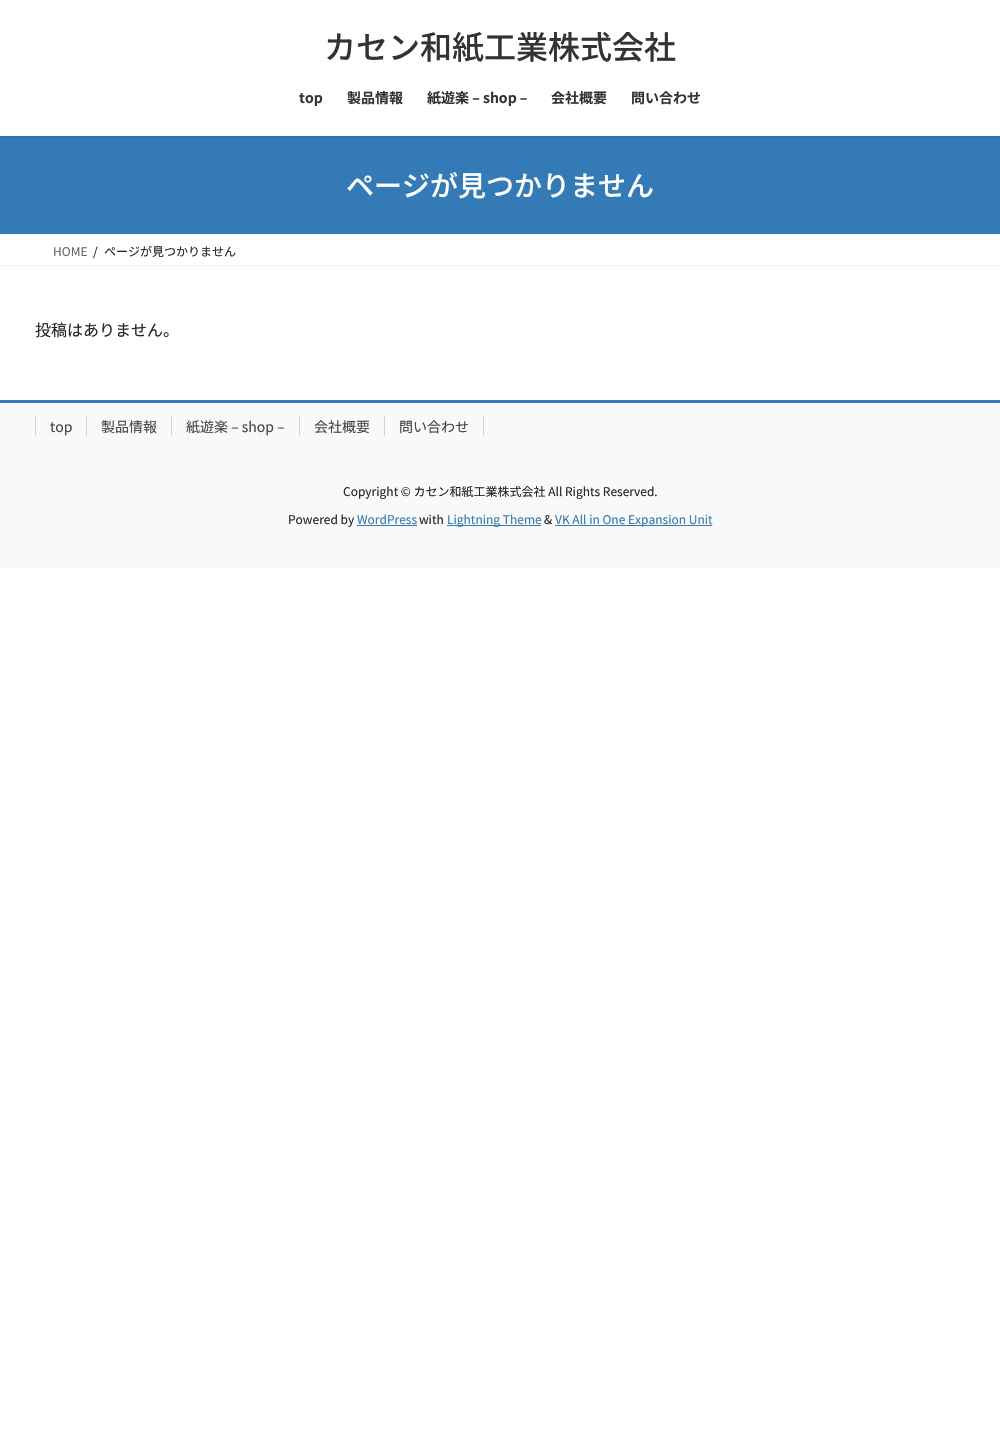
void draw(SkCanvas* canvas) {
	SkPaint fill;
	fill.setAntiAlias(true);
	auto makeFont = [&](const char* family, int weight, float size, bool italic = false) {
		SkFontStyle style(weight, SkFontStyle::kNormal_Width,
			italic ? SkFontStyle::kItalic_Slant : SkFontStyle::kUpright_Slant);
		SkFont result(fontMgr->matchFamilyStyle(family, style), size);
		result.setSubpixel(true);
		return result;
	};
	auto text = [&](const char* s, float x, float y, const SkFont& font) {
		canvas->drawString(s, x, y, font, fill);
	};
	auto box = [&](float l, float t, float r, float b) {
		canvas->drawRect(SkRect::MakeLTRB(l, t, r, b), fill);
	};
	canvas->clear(0xFFFFFFFF);
	fill.setColor(0xFF337AB7);
	box(0, 136, 1000, 234);
	canvas->save();
	canvas->clipRect(SkRect::MakeLTRB(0, 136, 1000, 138));
	fill.setColor(0x1A000000);
	fill.setMaskFilter(SkMaskFilter::MakeBlur(kNormal_SkBlurStyle, 1.5f));
	canvas->drawRect(SkRect::MakeLTRB(0, 1, 1000, 137), fill);
	fill.setMaskFilter(nullptr);
	canvas->restore();
	fill.setColor(0xFFF2F2F2);
	box(0, 265, 1000, 266);
	fill.setColor(0xFFF9F9F9);
	box(0, 403, 1000, 568);
	fill.setColor(0xFF337AB7);
	box(0, 400, 1000, 403);
	fill.setColor(0xFFD4D4D4);
	box(35, 416, 36, 436);
	box(86, 416, 87, 436);
	box(171, 416, 172, 436);
	box(299, 416, 300, 436);
	box(483, 416, 484, 436);
	box(384, 416, 385, 436);
	fill.setColor(0xFF337AB7);
	box(357, 525, 417, 526);
	box(447, 525, 541, 526);
	box(555, 525, 712, 526);
	auto font1 = makeFont("Noto Sans JP", 500, 32);
	fill.setColor(0xFF333333);
	text("カセン和紙工業株式会社", 324, 59, font1);
	auto font2 = makeFont("Noto Sans JP", 700, 14);
	text("top", 299, 103, font2);
	text("製品情報", 347, 103, font2);
	text("紙遊楽 – shop –", 427, 103, font2);
	text("会社概要", 551, 103, font2);
	text("問い合わせ", 631, 103, font2);
	auto font3 = makeFont("Noto Sans JP", 500, 28);
	fill.setColor(0xFFFFFFFF);
	text("ページが見つかりません", 346, 196, font3);
	auto font4 = makeFont("Noto Sans JP", 400, 12);
	fill.setColor(0xFF666666);
	text("HOME", 53, 256, font4);
	fill.setColor(0xFF212529);
	text("/", 93, 256, font4);
	text("ページが見つかりません", 104, 256, font4);
	auto font5 = makeFont("Noto Sans JP", 400, 16);
	text("投稿はありません。", 35, 336, font5);
	auto font6 = makeFont("Noto Sans JP", 400, 14);
	fill.setColor(0xFF464646);
	text("top", 50, 432, font6);
	text("製品情報", 101, 432, font6);
	text("紙遊楽 – shop –", 186, 432, font6);
	text("会社概要", 314, 432, font6);
	text("問い合わせ", 399, 432, font6);
	fill.setColor(0xFF212529);
	text("Copyright © カセン和紙工業株式会社 All Rights Reserved.", 343, 496, font4);
	text("Powered by", 288, 524, font4);
	fill.setColor(0xFF337AB7);
	text("WordPress", 357, 524, font4);
	fill.setColor(0xFF212529);
	text("with", 419, 524, font4);
	fill.setColor(0xFF337AB7);
	text("Lightning Theme", 447, 524, font4);
	fill.setColor(0xFF212529);
	text("&", 544, 524, font4);
	fill.setColor(0xFF337AB7);
	text("VK All in One Expansion Unit", 555, 524, font4);
}
